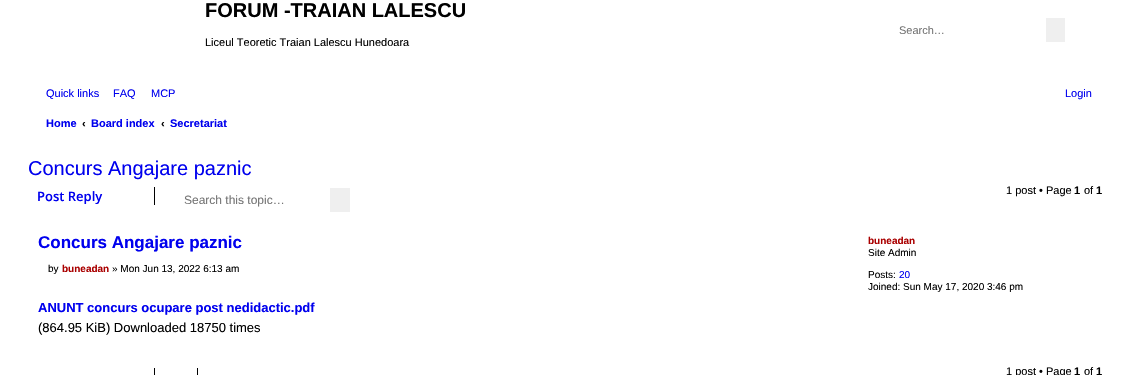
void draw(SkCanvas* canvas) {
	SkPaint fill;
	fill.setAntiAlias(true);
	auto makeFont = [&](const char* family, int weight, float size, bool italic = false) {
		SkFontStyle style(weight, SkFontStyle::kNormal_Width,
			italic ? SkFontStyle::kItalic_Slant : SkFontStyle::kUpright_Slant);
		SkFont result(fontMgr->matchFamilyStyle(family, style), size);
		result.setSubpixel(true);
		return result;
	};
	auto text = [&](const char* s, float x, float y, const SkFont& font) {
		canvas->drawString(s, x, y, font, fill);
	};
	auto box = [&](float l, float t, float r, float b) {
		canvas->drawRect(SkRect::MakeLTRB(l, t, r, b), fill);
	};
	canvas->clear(0xFFFFFFFF);
	fill.setColor(0xFFEFEFEF);
	box(1046, 18, 1065, 42);
	fill.setColor(0xFF000000);
	box(154, 187, 155, 205);
	fill.setColor(0xFFEFEFEF);
	box(330, 188, 350, 212);
	fill.setColor(0xFF000000);
	box(154, 368, 155, 375);
	box(197, 368, 198, 375);
	auto font1 = makeFont("Liberation Sans", 700, 20);
	text("FORUM -TRAIAN LALESCU", 205, 17, font1);
	auto font2 = makeFont("Liberation Sans", 400, 11);
	text("Liceul Teoretic Traian Lalescu Hunedoara", 205, 46, font2);
	fill.setColor(0xFF757575);
	text("Search…", 899, 34, font2);
	fill.setColor(0xFF0000EE);
	text("Quick links", 46, 97, font2);
	text("FAQ", 113, 97, font2);
	text("MCP", 151, 97, font2);
	text("Login", 1065, 97, font2);
	auto font3 = makeFont("Liberation Sans", 700, 11);
	text("Home", 46, 127, font3);
	fill.setColor(0xFF000000);
	text("‹", 82, 127, font3);
	fill.setColor(0xFF0000EE);
	text("Board index", 91, 127, font3);
	fill.setColor(0xFF000000);
	text("‹", 161, 127, font3);
	fill.setColor(0xFF0000EE);
	text("Secretariat", 170, 127, font3);
	auto font4 = makeFont("Liberation Sans", 400, 20);
	text("Concurs Angajare paznic", 28, 175, font4);
	auto font5 = makeFont("Open Sans", 600, 13);
	text("Post Reply", 37, 201, font5);
	auto font6 = makeFont("Liberation Sans", 400, 12);
	fill.setColor(0xFF757575);
	text("Search this topic…", 184, 204, font6);
	fill.setColor(0xFF000000);
	text("1 post • Page", 1006, 194, font2);
	text("1", 1074, 194, font3);
	text("of", 1084, 194, font2);
	text("1", 1096, 194, font3);
	auto font7 = makeFont("Liberation Sans", 700, 17);
	fill.setColor(0xFF0000EE);
	text("Concurs Angajare paznic", 38, 248, font7);
	auto font8 = makeFont("Liberation Sans", 400, 10);
	fill.setColor(0xFF000000);
	text("by", 48, 272, font8);
	auto font9 = makeFont("Liberation Sans", 700, 10);
	fill.setColor(0xFFAA0000);
	text("buneadan", 62, 272, font9);
	fill.setColor(0xFF000000);
	text("» Mon Jun 13, 2022 6:13 am", 112, 272, font8);
	auto font10 = makeFont("Liberation Sans", 700, 13);
	fill.setColor(0xFF0000EE);
	text("ANUNT concurs ocupare post nedidactic.pdf", 38, 312, font10);
	auto font11 = makeFont("Liberation Sans", 400, 13);
	fill.setColor(0xFF000000);
	text("(864.95 KiB) Downloaded 18750 times", 38, 332, font11);
	fill.setColor(0xFFAA0000);
	text("buneadan", 868, 244, font9);
	fill.setColor(0xFF000000);
	text("Site Admin", 868, 256, font8);
	text("Posts:", 868, 278, font8);
	fill.setColor(0xFF0000EE);
	text("20", 899, 278, font8);
	fill.setColor(0xFF000000);
	text("Joined: Sun May 17, 2020 3:46 pm", 868, 290, font8);
	text("1 post • Page", 1006, 375, font2);
	text("1", 1074, 375, font3);
	text("of", 1084, 375, font2);
	text("1", 1096, 375, font3);
}
